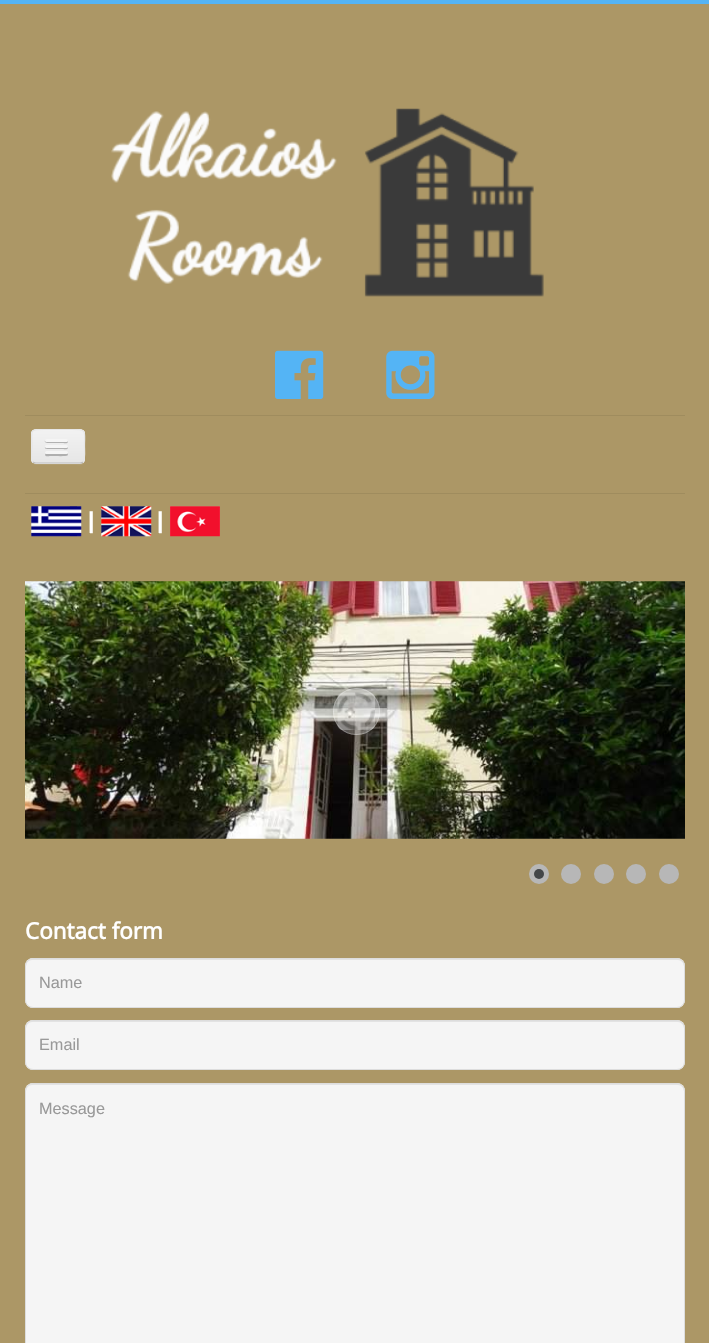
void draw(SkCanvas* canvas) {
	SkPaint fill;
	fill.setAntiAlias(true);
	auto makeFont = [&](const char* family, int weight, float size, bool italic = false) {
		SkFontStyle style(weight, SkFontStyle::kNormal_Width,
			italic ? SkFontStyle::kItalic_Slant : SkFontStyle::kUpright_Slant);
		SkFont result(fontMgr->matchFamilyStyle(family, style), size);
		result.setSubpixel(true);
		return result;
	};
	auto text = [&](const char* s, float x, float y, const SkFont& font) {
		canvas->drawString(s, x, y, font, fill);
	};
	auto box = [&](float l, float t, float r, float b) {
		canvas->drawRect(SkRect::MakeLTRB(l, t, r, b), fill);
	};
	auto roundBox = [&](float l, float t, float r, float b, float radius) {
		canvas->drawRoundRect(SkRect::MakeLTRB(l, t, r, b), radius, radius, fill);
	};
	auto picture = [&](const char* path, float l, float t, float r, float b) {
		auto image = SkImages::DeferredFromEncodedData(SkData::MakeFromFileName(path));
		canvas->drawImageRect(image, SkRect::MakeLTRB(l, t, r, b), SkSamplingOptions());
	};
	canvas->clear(0xFFAC9766);
	fill.setColor(0xFF54B4F5);
	box(0, 0, 709, 4);
	picture("image0.png", 111, 108, 544, 297);
	picture("image1.png", 275, 350, 324, 399);
	picture("image2.png", 386, 350, 435, 399);
	fill.setColor(0xFF9F8C5E);
	box(25, 415, 685, 416);
	box(25, 493, 685, 494);
	fill.setColor(0xFFB29F71);
	canvas->drawPath(SkPathBuilder().moveTo(31, 433).lineTo(31, 461).cubicTo(32, 466, 40, 465, 43, 465).lineTo(73, 465).cubicTo(79, 465, 85, 467, 85, 459).cubicTo(85, 462, 83, 464, 80, 464).lineTo(36, 464).cubicTo(33, 464, 31, 462, 31, 459).close().detach(), fill);
	fill.setColor(0xFFEDEDED);
	roundBox(31, 429, 85, 464, 5);
	canvas->save();
	canvas->clipPath(SkPathBuilder().moveTo(36, 429).lineTo(80, 429).cubicTo(83, 429, 85, 431, 85, 434).lineTo(85, 459).cubicTo(85, 462, 83, 464, 80, 464).lineTo(36, 464).cubicTo(33, 464, 31, 462, 31, 459).lineTo(31, 434).cubicTo(31, 431, 33, 429, 36, 429).close().detach(), true);
	{
		const SkColor colors[] = {0xFFF2F2F2, 0xFFE6E6E6};
		const float stops[] = {0, 1};
		const SkPoint ends[] = {{58, 430}, {58, 463}};
		fill.setShader(SkGradientShader::MakeLinear(ends, colors, stops, 2, SkTileMode::kClamp));
		fill.setAlpha(255);
	}
	box(31, 430, 85, 463);
	canvas->restore();
	fill.setStyle(SkPaint::kStroke_Style);
	fill.setStrokeWidth(1.2f);
	fill.setShader(nullptr);
	fill.setColor(0xFFBFBFBF);
	canvas->drawPath(SkPathBuilder().moveTo(83, 462).cubicTo(82.5f, 462.5f, 81, 463, 80, 463).lineTo(36, 463).cubicTo(35, 463, 34, 462.5f, 33, 462).detach(), fill);
	fill.setColor(0xFFE6E6E6);
	canvas->drawPath(SkPathBuilder().moveTo(33, 462).cubicTo(30.5f, 459.5f, 32, 449.5f, 32, 446).cubicTo(32, 430.5f, 28.5f, 429.5f, 43.5f, 429.5f).lineTo(72.5f, 429.5f).cubicTo(87.5f, 429.5f, 84.5f, 430.5f, 84.5f, 446).cubicTo(84.5f, 449.5f, 85.5f, 459.5f, 83, 462).detach(), fill);
	fill.setStyle(SkPaint::kFill_Style);
	fill.setColor(0xFFB2B2B2);
	canvas->drawPath(SkPathBuilder().moveTo(45, 440.5f).cubicTo(43.5f, 443.5f, 49.5f, 443, 50, 443).lineTo(63, 443).cubicTo(64, 443, 67.5f, 444, 68, 442).cubicTo(68, 441.5f, 68, 440.5f, 67.5f, 440.5f).lineTo(66.5f, 441).lineTo(46, 441).close().detach(), fill);
	fill.setColor(0xFFF5F5F5);
	roundBox(45, 439, 68, 442, 1.5f);
	fill.setColor(0xFFB0B0B0);
	canvas->drawPath(SkPathBuilder().moveTo(45, 447).cubicTo(44, 449.5f, 49, 449, 50, 449).lineTo(63, 449).cubicTo(64, 449, 67.5f, 450, 68, 448).cubicTo(68, 447.5f, 68, 446.5f, 67.5f, 446.5f).cubicTo(67.5f, 447, 67, 447.5f, 66, 447.5f).lineTo(46, 447.5f).cubicTo(46, 447.5f, 45.5f, 447, 45, 447).close().detach(), fill);
	fill.setColor(0xFFF5F5F5);
	roundBox(45, 445, 68, 448, 1.5f);
	fill.setColor(0xFFAFAFAF);
	canvas->drawPath(SkPathBuilder().moveTo(45.5f, 453.5f).lineTo(45, 455).cubicTo(45.5f, 457, 49, 456, 50, 456).lineTo(53, 456).cubicTo(55, 456, 66.5f, 456.5f, 67.5f, 455.5f).cubicTo(68, 455, 68, 454, 67.5f, 453).lineTo(66.5f, 453.5f).cubicTo(64.5f, 454, 46, 454, 45.5f, 453.5f).close().detach(), fill);
	fill.setColor(0xFFF5F5F5);
	roundBox(45, 451, 68, 454, 1.5f);
	picture("image3.png", 31, 506, 82, 537);
	picture("image4.png", 101, 506, 152, 537);
	picture("image5.png", 170, 506, 220, 537);
	picture("image6.png", 25, 581, 685, 839);
	fill.setColor(0x42FFFFFF);
	roundBox(333, 688, 380, 735, 23);
	picture("image7.png", 337, 692, 375, 730);
	fill.setStyle(SkPaint::kStroke_Style);
	fill.setStrokeWidth(1);
	fill.setColor(0x47FFFFFF);
	canvas->drawRoundRect(SkRect::MakeLTRB(333.5f, 688.5f, 379.5f, 734.5f), 22.5f, 22.5f, fill);
	fill.setStyle(SkPaint::kFill_Style);
	fill.setColor(0xFFB7B7B7);
	canvas->drawCircle(539, 874, 10, fill);
	fill.setColor(0xFF434648);
	canvas->drawCircle(539, 874, 5, fill);
	fill.setColor(0xFFB7B7B7);
	canvas->drawCircle(571, 874, 10, fill);
	canvas->drawCircle(604, 874, 10, fill);
	canvas->drawCircle(636, 874, 10, fill);
	canvas->drawCircle(669, 874, 10, fill);
	fill.setColor(0xFFF5F5F5);
	roundBox(25, 958, 685, 1008, 8);
	fill.setColor(0xFFE3E3E3);
	canvas->drawPath(SkPathBuilder().moveTo(32, 960).lineTo(678, 960).cubicTo(681, 960, 684, 963, 684, 966).lineTo(684, 965).cubicTo(684, 962, 681, 959, 678, 959).lineTo(32, 959).cubicTo(29, 959, 26, 962, 26, 965).lineTo(26, 966).cubicTo(26, 963, 29, 960, 32, 960).close().detach(), fill);
	fill.setStyle(SkPaint::kStroke_Style);
	fill.setColor(0xFFDDDDDD);
	canvas->drawRoundRect(SkRect::MakeLTRB(25.5f, 958.5f, 684.5f, 1007.5f), 7.5f, 7.5f, fill);
	fill.setStyle(SkPaint::kFill_Style);
	fill.setColor(0xFFF5F5F5);
	roundBox(25, 1020, 685, 1070, 8);
	fill.setColor(0xFFE3E3E3);
	canvas->drawPath(SkPathBuilder().moveTo(32, 1022).lineTo(678, 1022).cubicTo(681, 1022, 684, 1025, 684, 1029).cubicTo(684, 1025, 683, 1021, 678, 1021).lineTo(32, 1021).cubicTo(27, 1021, 26, 1025, 26, 1029).cubicTo(26, 1025, 29, 1022, 32, 1022).close().detach(), fill);
	fill.setStyle(SkPaint::kStroke_Style);
	fill.setColor(0xFFDDDDDD);
	canvas->drawRoundRect(SkRect::MakeLTRB(25.5f, 1020.5f, 684.5f, 1069.5f), 7.5f, 7.5f, fill);
	fill.setStyle(SkPaint::kFill_Style);
	fill.setColor(0xFFF5F5F5);
	roundBox(25, 1083, 685, 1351, 8);
	fill.setColor(0xFFE3E3E3);
	canvas->drawPath(SkPathBuilder().moveTo(32, 1085).lineTo(678, 1085).cubicTo(681, 1085, 684, 1088, 684, 1091).lineTo(684, 1090).cubicTo(684, 1087, 681, 1084, 678, 1084).lineTo(32, 1084).cubicTo(29, 1084, 26, 1087, 26, 1090).lineTo(26, 1091).cubicTo(26, 1088, 29, 1085, 32, 1085).close().detach(), fill);
	fill.setStyle(SkPaint::kStroke_Style);
	fill.setColor(0xFFDDDDDD);
	canvas->drawRoundRect(SkRect::MakeLTRB(25.5f, 1083.5f, 684.5f, 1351.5f), 7.5f, 7.5f, fill);
	auto font1 = makeFont("Liberation Sans", 700, 23);
	fill.setStyle(SkPaint::kFill_Style);
	fill.setColor(0xFFFFFFFF);
	text("|", 88, 528, font1);
	text("|", 157, 528, font1);
	auto font2 = makeFont("Open Sans", 700, 22.5f);
	text("Contact form", 25, 939, font2);
	auto font3 = makeFont("Liberation Sans", 400, 16.25f);
	fill.setColor(0xFF999999);
	text("Name", 39, 988, font3);
	text("Email", 39, 1050, font3);
	text("Message", 39, 1114, font3);
}
